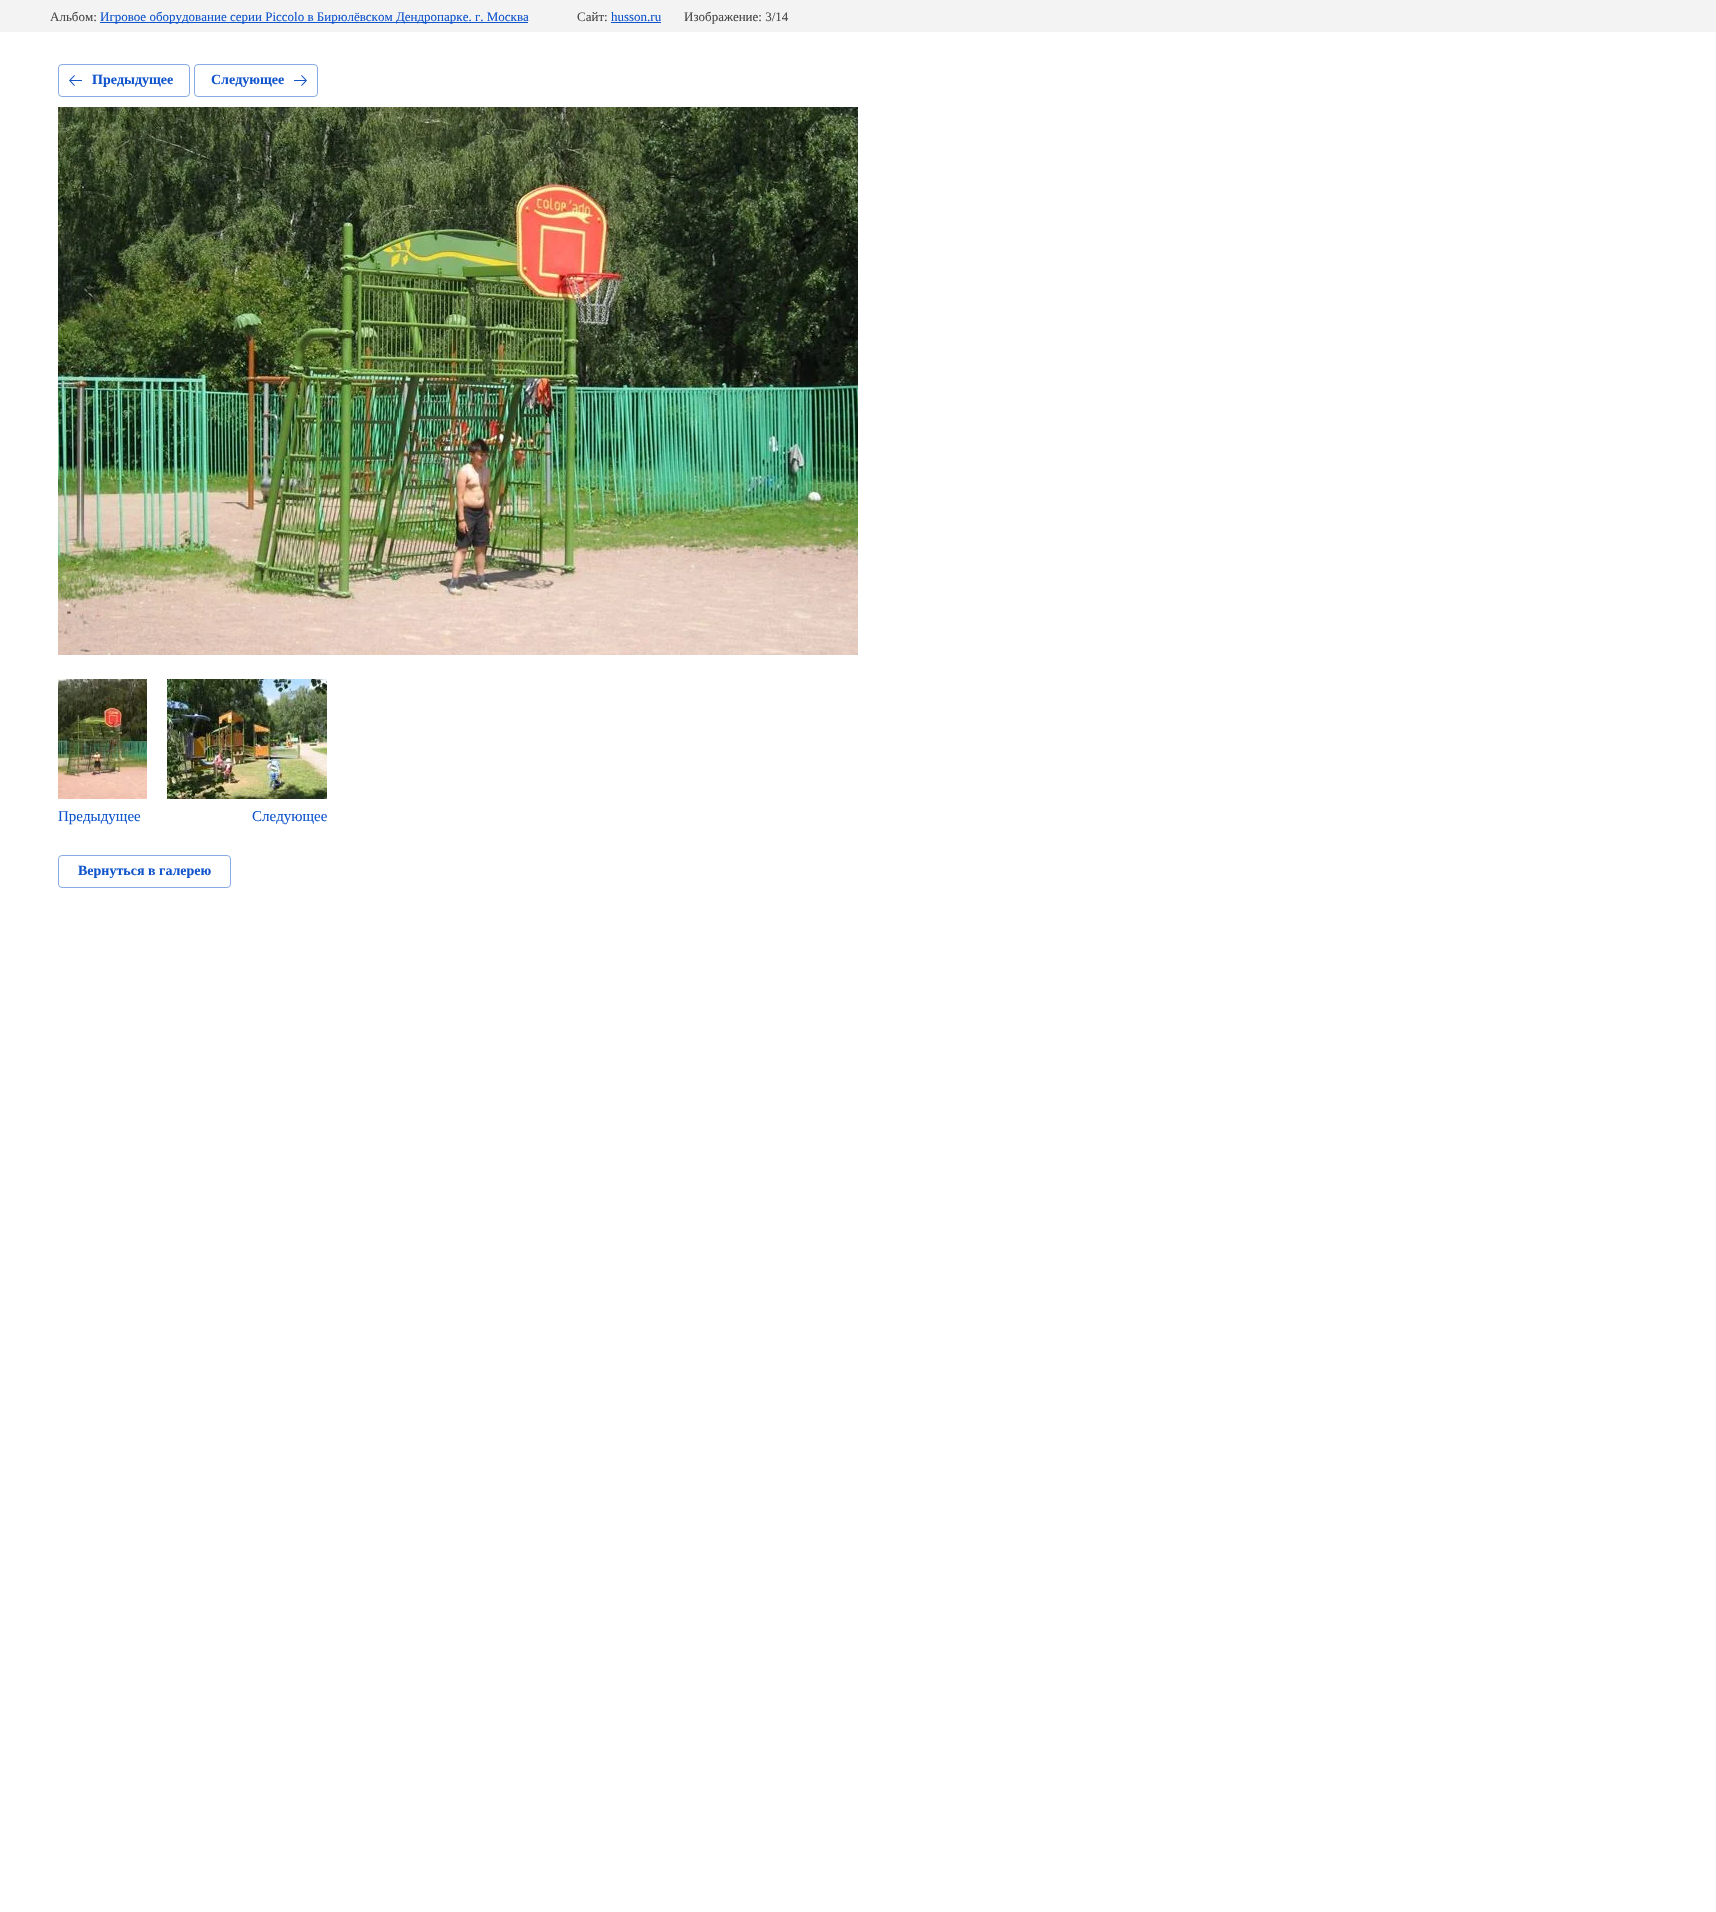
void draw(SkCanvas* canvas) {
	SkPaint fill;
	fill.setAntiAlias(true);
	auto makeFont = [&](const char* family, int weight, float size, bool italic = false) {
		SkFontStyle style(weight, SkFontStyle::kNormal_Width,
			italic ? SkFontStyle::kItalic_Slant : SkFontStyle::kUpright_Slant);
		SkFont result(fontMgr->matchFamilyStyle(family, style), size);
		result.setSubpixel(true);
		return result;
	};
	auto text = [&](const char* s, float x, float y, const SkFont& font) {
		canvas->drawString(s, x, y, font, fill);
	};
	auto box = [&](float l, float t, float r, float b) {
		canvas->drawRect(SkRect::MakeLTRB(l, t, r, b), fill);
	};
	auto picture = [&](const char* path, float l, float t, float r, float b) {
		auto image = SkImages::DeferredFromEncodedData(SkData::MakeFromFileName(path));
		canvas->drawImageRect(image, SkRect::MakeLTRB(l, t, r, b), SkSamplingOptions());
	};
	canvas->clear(0xFFFFFFFF);
	fill.setColor(0xFFF3F3F3);
	box(0, 0, 1716, 32);
	fill.setColor(0xFF1155CC);
	box(100, 22, 528, 23);
	box(611, 22, 661, 23);
	fill.setStyle(SkPaint::kStroke_Style);
	fill.setStrokeWidth(1);
	fill.setColor(0xFF88AAE6);
	canvas->drawRoundRect(SkRect::MakeLTRB(58.5f, 64.5f, 189.5f, 96.5f), 3.5f, 3.5f, fill);
	picture("image0.png", 69, 75, 82, 86);
	canvas->drawRoundRect(SkRect::MakeLTRB(194.5f, 64.5f, 317.5f, 96.5f), 3.5f, 3.5f, fill);
	picture("image1.png", 294, 75, 307, 86);
	picture("image2.png", 58, 107, 858, 655);
	picture("image3.png", 58, 679, 147, 799);
	picture("image4.png", 167, 679, 327, 799);
	canvas->drawRoundRect(SkRect::MakeLTRB(58.5f, 855.5f, 230.5f, 887.5f), 3.5f, 3.5f, fill);
	auto font1 = makeFont("Liberation Serif", 400, 13);
	fill.setStyle(SkPaint::kFill_Style);
	fill.setColor(0xFF484848);
	text("Альбом:", 50, 21, font1);
	fill.setColor(0xFF1155CC);
	text("Игровое оборудование серии Piccolo в Бирюлёвском Дендропарке. г. Москва", 100, 21, font1);
	fill.setColor(0xFF484848);
	text("Сайт:", 577, 21, font1);
	fill.setColor(0xFF1155CC);
	text("husson.ru", 611, 21, font1);
	fill.setColor(0xFF484848);
	text("Изображение: 3/14", 684, 21, font1);
	auto font2 = makeFont("Liberation Serif", 700, 14);
	fill.setColor(0xFF1155CC);
	text("Предыдущее", 92, 84, font2);
	text("Следующее", 211, 84, font2);
	auto font3 = makeFont("Liberation Serif", 400, 15);
	text("Предыдущее", 58, 821, font3);
	text("Следующее", 252, 821, font3);
	text("Вернуться в галерею", 78, 875, font2);
}
